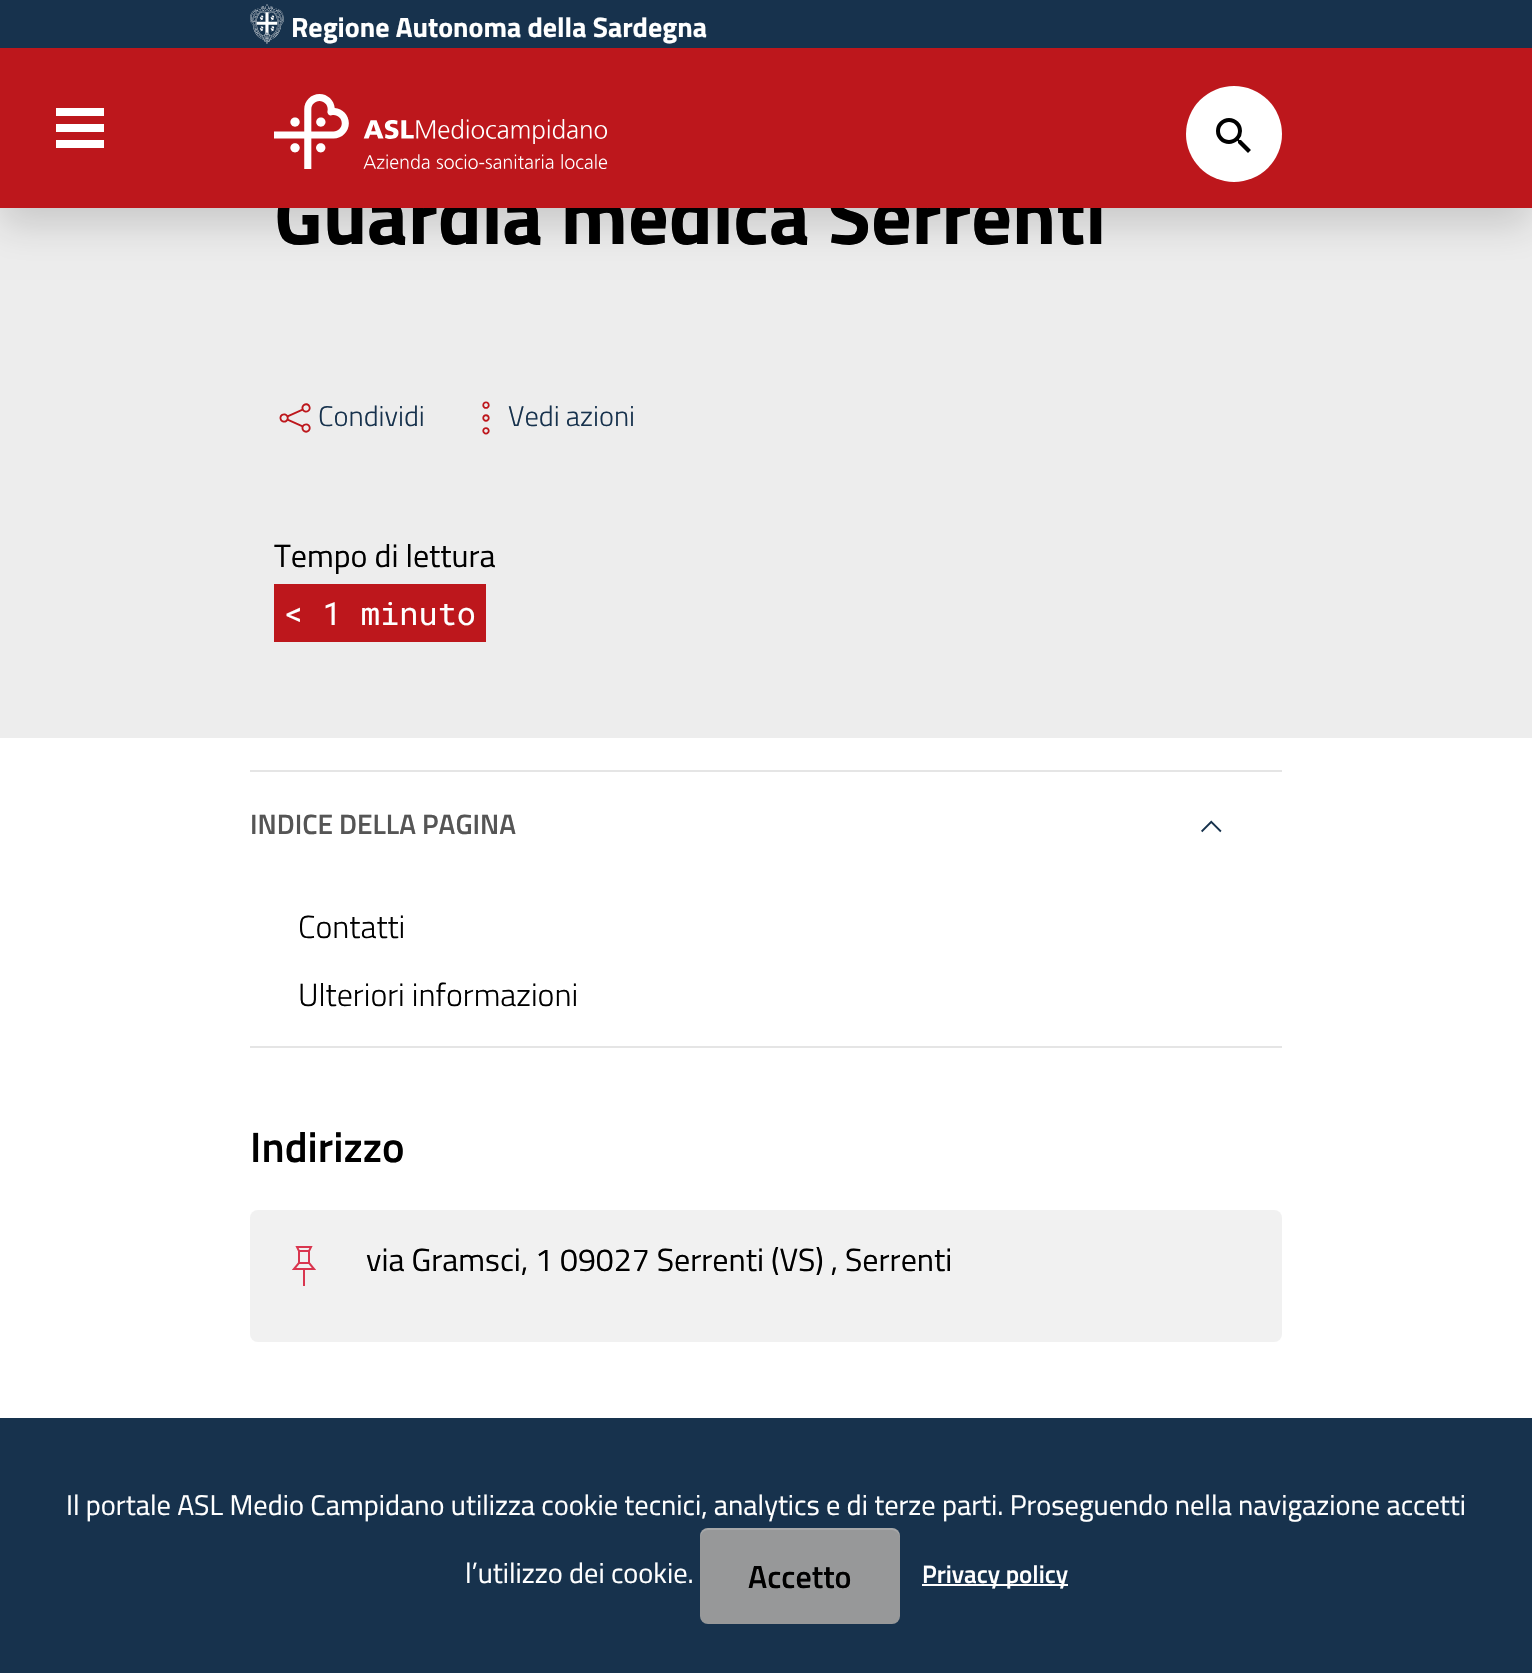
void draw(SkCanvas* canvas) {
	SkPaint fill;
	fill.setAntiAlias(true);
	auto makeFont = [&](const char* family, int weight, float size, bool italic = false) {
		SkFontStyle style(weight, SkFontStyle::kNormal_Width,
			italic ? SkFontStyle::kItalic_Slant : SkFontStyle::kUpright_Slant);
		SkFont result(fontMgr->matchFamilyStyle(family, style), size);
		result.setSubpixel(true);
		return result;
	};
	auto text = [&](const char* s, float x, float y, const SkFont& font) {
		canvas->drawString(s, x, y, font, fill);
	};
	auto box = [&](float l, float t, float r, float b) {
		canvas->drawRect(SkRect::MakeLTRB(l, t, r, b), fill);
	};
	auto roundBox = [&](float l, float t, float r, float b, float radius) {
		canvas->drawRoundRect(SkRect::MakeLTRB(l, t, r, b), radius, radius, fill);
	};
	auto picture = [&](const char* path, float l, float t, float r, float b) {
		auto image = SkImages::DeferredFromEncodedData(SkData::MakeFromFileName(path));
		canvas->drawImageRect(image, SkRect::MakeLTRB(l, t, r, b), SkSamplingOptions());
	};
	canvas->clear(0xFFFFFFFF);
	fill.setColor(0xFFEDEDED);
	box(0, 208, 1532, 738);
	fill.setColor(0x26000000);
	fill.setMaskFilter(SkMaskFilter::MakeBlur(kNormal_SkBlurStyle, 18));
	canvas->drawRect(SkRect::MakeLTRB(0, 18, 1532, 226), fill);
	fill.setMaskFilter(nullptr);
	fill.setColor(0xFF17324D);
	box(0, 0, 1532, 48);
	picture("image0.png", 250, 4, 284, 44);
	picture("image3.png", 279, 403, 311, 433);
	picture("image4.png", 482, 401, 490, 435);
	fill.setColor(0xFFBD171C);
	box(274, 584, 486, 642);
	fill.setColor(0xFFE5E5E5);
	box(250, 770, 1282, 772);
	picture("image5.png", 1201, 820, 1222, 833);
	box(250, 1046, 1282, 1048);
	fill.setColor(0xFFF1F1F1);
	roundBox(250, 1210, 1282, 1342, 8);
	picture("image6.png", 292, 1246, 316, 1286);
	fill.setColor(0xFF17324D);
	box(0, 1418, 1532, 1673);
	fill.setColor(0xFF979899);
	roundBox(700, 1528, 900, 1624, 8);
	fill.setColor(0x26FFFFFF);
	canvas->drawPath(SkPathBuilder().moveTo(708, 1530).lineTo(892, 1530).cubicTo(896, 1530, 900, 1534, 900, 1538).lineTo(900, 1536).cubicTo(900, 1532, 896, 1528, 892, 1528).lineTo(708, 1528).cubicTo(704, 1528, 700, 1532, 700, 1536).lineTo(700, 1538).cubicTo(700, 1534, 704, 1530, 708, 1530).close().detach(), fill);
	fill.setColor(0xFFFFFFFF);
	box(922, 1584, 1068, 1586);
	auto font1 = makeFont("Titillium Web", 700, 28);
	text("Regione Autonoma della Sardegna", 291, 37, font1);
	auto font2 = makeFont("Titillium Web", 700, 80);
	fill.setColor(0xFF000000);
	text("Guardia medica Serrenti", 274, 244, font2);
	fill.setColor(0xFFBD171C);
	box(0, 48, 1532, 208);
	fill.setColor(0xFFFFFFFF);
	canvas->drawCircle(1234, 134, 48, fill);
	picture("image2.png", 1216, 118, 1251, 153);
	picture("image1.png", 274, 94, 608, 169);
	box(56, 140, 104, 148);
	box(56, 124, 104, 132);
	box(56, 108, 104, 116);
	auto font3 = makeFont("Titillium Web", 300, 28.45f);
	fill.setColor(0xFF17324D);
	text("Condividi", 318, 426, font3);
	text("Vedi azioni", 508, 426, font3);
	auto font4 = makeFont("Titillium Web", 400, 32);
	fill.setColor(0xFF000000);
	text("Tempo di lettura", 274, 567, font4);
	auto font5 = makeFont("Roboto Mono", 400, 32);
	fill.setColor(0xFFFFFFFF);
	text("< 1 minuto", 284, 625, font5);
	auto font6 = makeFont("Titillium Web", 600, 28);
	fill.setColor(0xFF555555);
	text("INDICE DELLA PAGINA", 250, 834, font6);
	auto font7 = makeFont("Titillium Web", 300, 32);
	fill.setColor(0xFF000000);
	text("Contatti", 298, 938, font7);
	text("Ulteriori informazioni", 298, 1006, font7);
	auto font8 = makeFont("Titillium Web", 600, 42.5f);
	text("Indirizzo", 250, 1162, font8);
	text("via Gramsci, 1 09027 Serrenti (VS) ,", 366, 1271, font4);
	text("Serrenti", 845, 1271, font4);
	auto font9 = makeFont("Titillium Web", 400, 28.45f);
	fill.setColor(0xFFFFFFFF);
	text("Il portale ASL Medio Campidano utilizza cookie tecnici, analytics e di terze parti. Proseguendo nella navigazione accetti", 66, 1515, font9);
	text("l’utilizzo dei cookie.", 465, 1583, font9);
	auto font10 = makeFont("Titillium Web", 600, 32);
	fill.setColor(0xFF000000);
	text("Accetto", 748, 1588, font10);
	auto font11 = makeFont("Titillium Web", 600, 25);
	fill.setColor(0xFFFFFFFF);
	text("Privacy policy", 922, 1583, font11);
}
